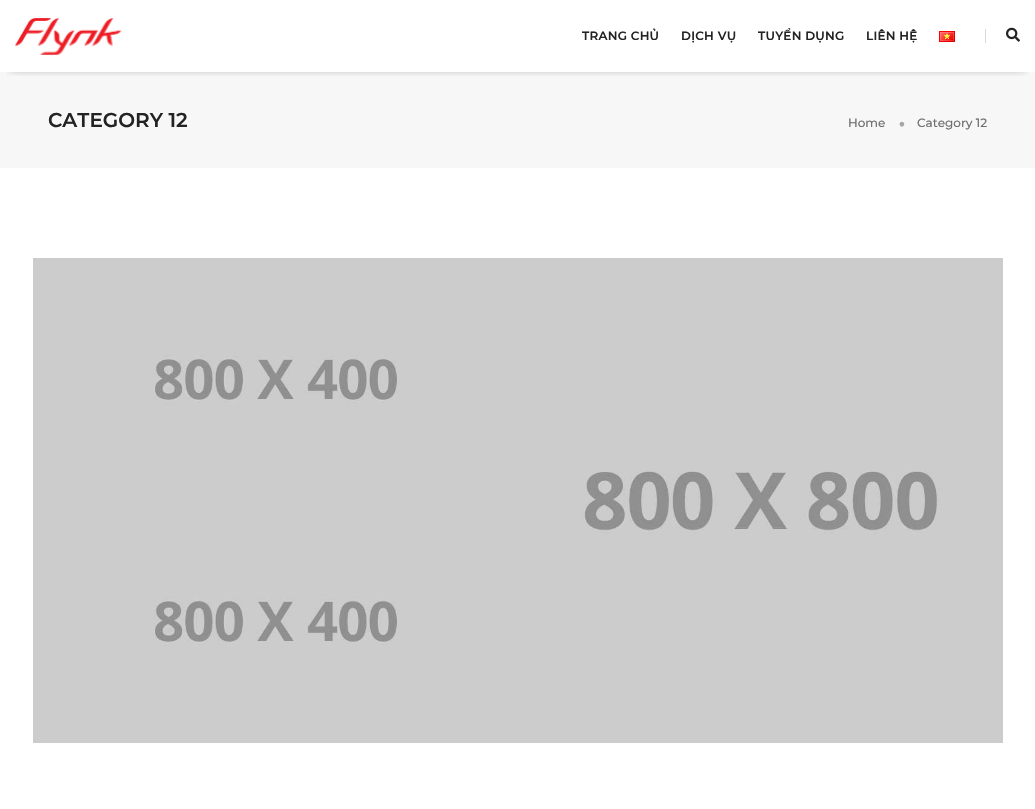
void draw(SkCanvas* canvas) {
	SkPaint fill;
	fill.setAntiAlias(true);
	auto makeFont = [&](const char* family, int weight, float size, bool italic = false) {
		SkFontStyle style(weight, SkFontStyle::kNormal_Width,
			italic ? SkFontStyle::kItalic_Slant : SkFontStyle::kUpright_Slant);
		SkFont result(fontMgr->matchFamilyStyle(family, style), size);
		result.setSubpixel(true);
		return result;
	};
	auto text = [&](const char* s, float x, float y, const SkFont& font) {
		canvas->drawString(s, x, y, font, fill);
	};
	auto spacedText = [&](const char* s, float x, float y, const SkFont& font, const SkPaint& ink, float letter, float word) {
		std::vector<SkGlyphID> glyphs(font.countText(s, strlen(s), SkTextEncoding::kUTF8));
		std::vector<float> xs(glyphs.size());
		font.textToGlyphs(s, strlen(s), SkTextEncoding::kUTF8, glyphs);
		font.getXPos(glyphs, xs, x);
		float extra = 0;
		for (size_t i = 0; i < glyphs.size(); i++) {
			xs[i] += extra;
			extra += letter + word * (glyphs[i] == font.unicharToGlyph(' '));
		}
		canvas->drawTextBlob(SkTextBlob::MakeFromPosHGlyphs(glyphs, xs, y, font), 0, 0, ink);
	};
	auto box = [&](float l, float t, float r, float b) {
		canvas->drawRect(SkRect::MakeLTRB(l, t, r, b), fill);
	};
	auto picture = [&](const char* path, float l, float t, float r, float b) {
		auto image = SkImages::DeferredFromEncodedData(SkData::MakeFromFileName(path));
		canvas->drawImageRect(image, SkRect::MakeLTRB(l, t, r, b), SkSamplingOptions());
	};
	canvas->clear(0xFFFFFFFF);
	fill.setColor(0xFFF7F7F7);
	box(0, 72, 1035, 168);
	canvas->save();
	canvas->clipRect(SkRect::MakeLTRB(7, 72, 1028, 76));
	fill.setColor(0x99000000);
	fill.setMaskFilter(SkMaskFilter::MakeBlur(kNormal_SkBlurStyle, 5));
	canvas->drawRect(SkRect::MakeLTRB(10, 15, 1025, 67), fill);
	fill.setMaskFilter(nullptr);
	canvas->restore();
	picture("image0.png", 15, 18, 122, 55);
	picture("image1.png", 939, 31, 955, 42);
	fill.setColor(0xFFD9D9D9);
	box(985, 29, 986, 43);
	picture("image2.png", 1006, 27, 1020, 42);
	picture("image3.png", 33, 258, 518, 500);
	picture("image4.png", 518, 258, 1003, 743);
	picture("image5.png", 33, 500, 518, 743);
	auto font1 = makeFont("Montserrat", 600, 12);
	fill.setColor(0xFF232323);
	spacedText("TRANG CHỦ", 582, 40, font1, fill, 0.25f, 0);
	spacedText("DỊCH VỤ", 681, 40, font1, fill, 0.25f, 0);
	spacedText("TUYỂN DỤNG", 758, 40, font1, fill, 0.25f, 0);
	spacedText("LIÊN HỆ", 866, 40, font1, fill, 0.25f, 0);
	auto font2 = makeFont("Montserrat", 600, 20);
	text("CATEGORY 12", 48, 127, font2);
	auto font3 = makeFont("Montserrat", 500, 12);
	fill.setColor(0xFF6F6F6F);
	text("Home", 848, 127, font3);
	auto font4 = makeFont("Montserrat", 500, 25);
	fill.setColor(0xFFA5A5A5);
	text("•", 898, 131, font4);
	fill.setColor(0xFF6F6F6F);
	text("Category 12", 917, 127, font3);
}
